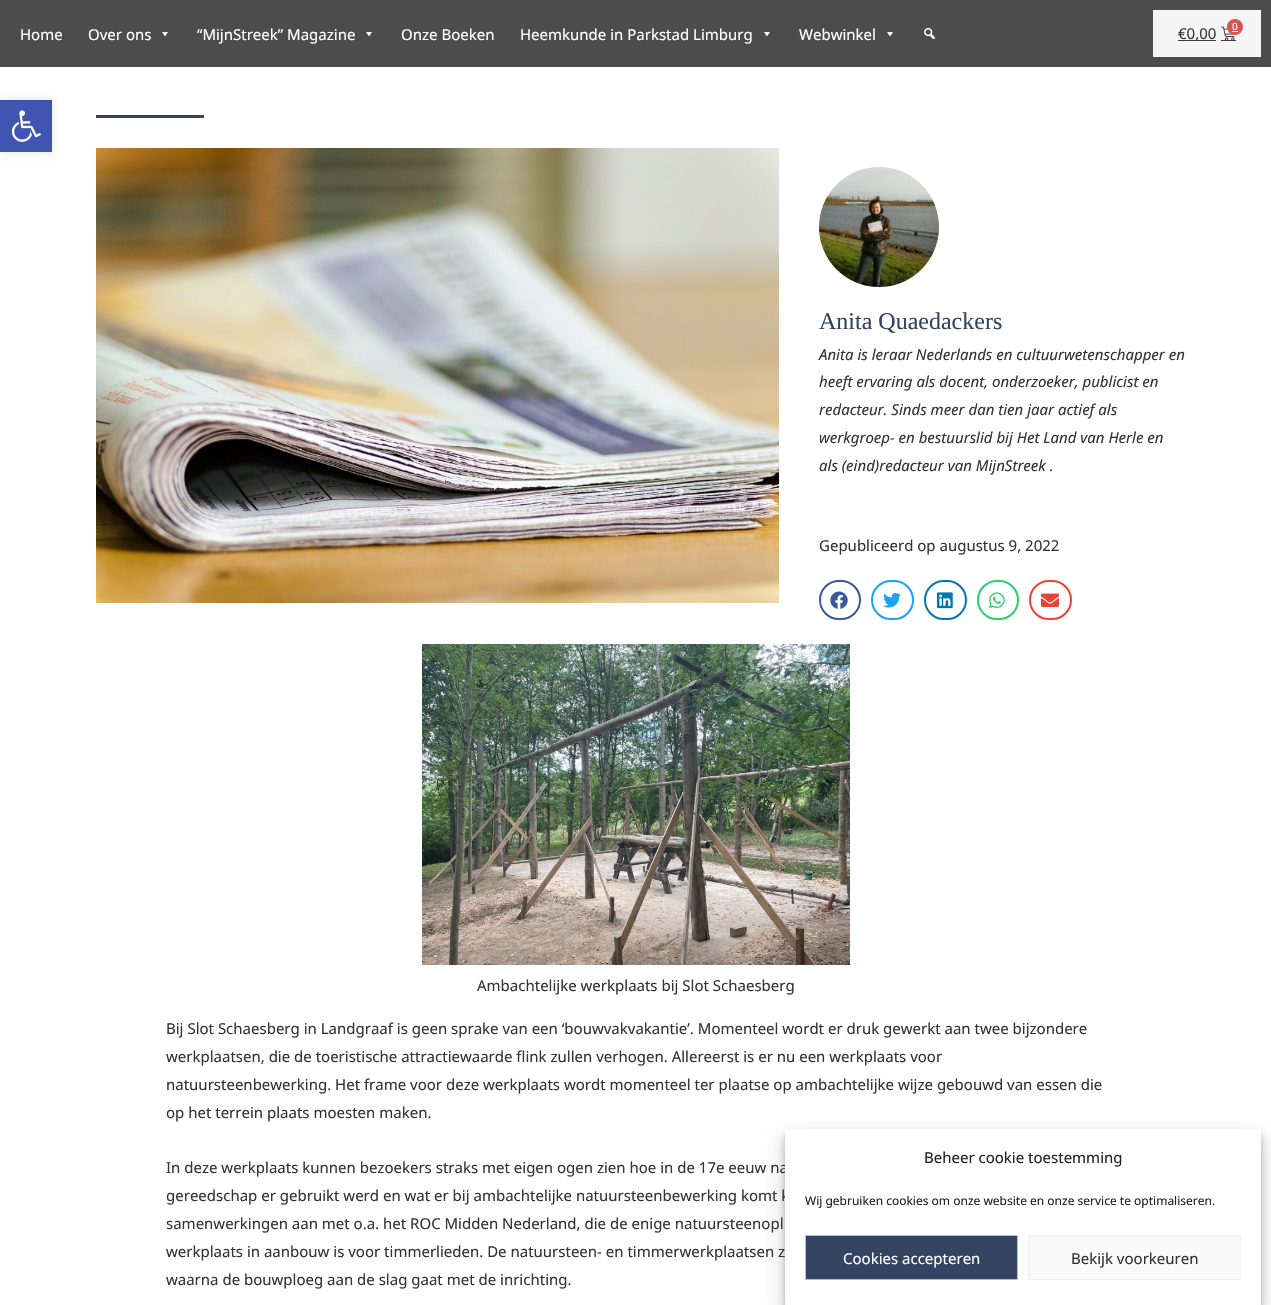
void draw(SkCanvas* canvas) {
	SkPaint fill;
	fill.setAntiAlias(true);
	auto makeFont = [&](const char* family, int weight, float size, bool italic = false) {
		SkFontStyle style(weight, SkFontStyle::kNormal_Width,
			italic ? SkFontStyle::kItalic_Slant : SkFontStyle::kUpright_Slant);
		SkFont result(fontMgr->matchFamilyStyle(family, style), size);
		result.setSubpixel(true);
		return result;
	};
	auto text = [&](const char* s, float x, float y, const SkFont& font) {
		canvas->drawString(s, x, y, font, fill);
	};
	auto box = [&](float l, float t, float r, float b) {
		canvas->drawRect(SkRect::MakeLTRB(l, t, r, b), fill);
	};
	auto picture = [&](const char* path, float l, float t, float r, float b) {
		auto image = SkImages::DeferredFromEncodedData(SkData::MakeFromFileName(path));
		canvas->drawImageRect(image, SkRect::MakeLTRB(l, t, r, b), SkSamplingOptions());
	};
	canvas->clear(0xFFFFFFFF);
	fill.setColor(0xB3000000);
	box(0, 0, 1271, 67);
	fill.setColor(0xFFFFFFFF);
	canvas->drawPath(SkPathBuilder().moveTo(168, 32).lineTo(165, 36.5f).lineTo(162, 32).close().detach(), fill);
	canvas->drawPath(SkPathBuilder().moveTo(372, 32).lineTo(369, 36.5f).lineTo(366, 32).close().detach(), fill);
	canvas->drawPath(SkPathBuilder().moveTo(770, 32).lineTo(767, 36.5f).lineTo(764, 32).close().detach(), fill);
	canvas->drawPath(SkPathBuilder().moveTo(893, 32).lineTo(890, 36.5f).lineTo(887, 32).close().detach(), fill);
	picture("image0.png", 924, 27, 935, 39);
	fill.setColor(0xFFF5F5F5);
	box(1153, 10, 1261, 57);
	picture("image1.png", 1221, 26, 1235, 40);
	fill.setColor(0xFFD9534F);
	canvas->drawCircle(1235, 27, 8, fill);
	fill.setColor(0xFFFFFFFF);
	box(1232, 31, 1238, 32);
	fill.setColor(0xFF3A3A3A);
	box(1221, 40, 1236, 41);
	box(1178, 40, 1216, 41);
	fill.setColor(0xFF334462);
	box(96, 115, 204, 118);
	picture("image2.png", 96, 148, 779, 603);
	picture("image3.png", 819, 167, 939, 287);
	fill.setStyle(SkPaint::kStroke_Style);
	fill.setStrokeWidth(2);
	fill.setColor(0xFF3B5998);
	canvas->drawRoundRect(SkRect::MakeLTRB(820, 581, 860, 619), 19, 19, fill);
	picture("image4.png", 830, 591, 848, 609);
	fill.setColor(0xFF1DA1F2);
	canvas->drawRoundRect(SkRect::MakeLTRB(872, 581, 913, 619), 19, 19, fill);
	picture("image5.png", 883, 592, 901, 608);
	fill.setColor(0xFF0077B5);
	canvas->drawRoundRect(SkRect::MakeLTRB(925, 581, 966, 619), 19, 19, fill);
	picture("image6.png", 937, 592, 953, 609);
	fill.setColor(0xFF25D366);
	canvas->drawRoundRect(SkRect::MakeLTRB(978, 581, 1018, 619), 19, 19, fill);
	picture("image7.png", 989, 592, 1005, 609);
	fill.setColor(0xFFEA4335);
	canvas->drawRoundRect(SkRect::MakeLTRB(1030, 581, 1071, 619), 19, 19, fill);
	picture("image8.png", 1041, 593, 1059, 607);
	picture("image9.png", 422, 644, 850, 965);
	fill.setStyle(SkPaint::kFill_Style);
	fill.setColor(0x1A000000);
	fill.setMaskFilter(SkMaskFilter::MakeBlur(kNormal_SkBlurStyle, 5));
	canvas->drawRect(SkRect::MakeLTRB(0, 100, 52, 152), fill);
	fill.setMaskFilter(nullptr);
	fill.setColor(0xFF4054B2);
	box(0, 100, 52, 152);
	picture("image10.png", 11, 110, 41, 142);
	fill.setColor(0x3B000000);
	fill.setMaskFilter(SkMaskFilter::MakeBlur(kNormal_SkBlurStyle, 3));
	canvas->drawRect(SkRect::MakeLTRB(785, 1135, 1261, 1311), fill);
	fill.setMaskFilter(nullptr);
	fill.setColor(0x30000000);
	fill.setMaskFilter(SkMaskFilter::MakeBlur(kNormal_SkBlurStyle, 10));
	canvas->drawRect(SkRect::MakeLTRB(785, 1139, 1261, 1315), fill);
	fill.setMaskFilter(nullptr);
	auto font1 = makeFont("Noto Sans", 400, 15);
	fill.setColor(0xFFFFFFFF);
	text("Home", 20, 40, font1);
	text("Over ons", 88, 40, font1);
	text("“MijnStreek” Magazine", 197, 40, font1);
	text("Onze Boeken", 401, 40, font1);
	text("Heemkunde in Parkstad Limburg", 520, 40, font1);
	text("Webwinkel", 799, 40, font1);
	auto font2 = makeFont("Noto Sans", 400, 10);
	text("0", 1232, 30, font2);
	fill.setColor(0xFF3A3A3A);
	text("€0,00", 1178, 39, font1);
	auto font3 = makeFont("Liberation Serif", 400, 24);
	fill.setColor(0xFF334462);
	text("Anita Quaedackers", 819, 329, font3);
	auto font4 = makeFont("Noto Sans", 400, 15, true);
	fill.setColor(0xFF333333);
	text("Anita is leraar Nederlands en cultuurwetenschapper en", 819, 360, font4);
	text("heeft ervaring als docent, onderzoeker, publicist en", 819, 387, font4);
	text("redacteur. Sinds meer dan tien jaar actief als", 819, 415, font4);
	text("werkgroep- en bestuurslid bij Het Land van Herle en", 819, 443, font4);
	text("als (eind)redacteur van MijnStreek .", 819, 471, font4);
	text("Gepubliceerd op augustus 9, 2022", 819, 551, font1);
	text("Ambachtelijke werkplaats bij Slot Schaesberg", 477, 991, font1);
	text("Bij Slot Schaesberg in Landgraaf is geen sprake van een ‘bouwvakvakantie’. Momenteel wordt er druk gewerkt aan twee bijzondere", 166, 1034, font1);
	text("werkplaatsen, die de toeristische attractiewaarde flink zullen verhogen. Allereerst is er nu een werkplaats voor", 166, 1062, font1);
	text("natuursteenbewerking. Het frame voor deze werkplaats wordt momenteel ter plaatse op ambachtelijke wijze gebouwd van essen die", 166, 1090, font1);
	text("op het terrein plaats moesten maken.", 166, 1118, font1);
	text("In deze werkplaats kunnen bezoekers straks met eigen ogen zien hoe in de 17e eeuw na", 166, 1173, font1);
	text("gereedschap er gebruikt werd en wat er bij ambachtelijke natuursteenbewerking komt k", 166, 1201, font1);
	text("samenwerkingen aan met o.a. het ROC Midden Nederland, die de enige natuursteenopl", 166, 1229, font1);
	text("werkplaats in aanbouw is voor timmerlieden. De natuursteen- en timmerwerkplaatsen z", 166, 1257, font1);
	text("waarna de bouwploeg aan de slag gaat met de inrichting.", 166, 1285, font1);
	fill.setColor(0xFFFFFFFF);
	box(785, 1129, 1261, 1305);
	fill.setColor(0xFF222222);
	text("Beheer cookie toestemming", 924, 1163, font1);
	auto font5 = makeFont("Noto Sans", 400, 12);
	text("Wij gebruiken cookies om onze website en onze service te optimaliseren.", 805, 1205, font5);
	fill.setColor(0xFF334462);
	canvas->drawRect(SkRect::MakeLTRB(805.5f, 1235.5f, 1017.5f, 1279.5f), fill);
	fill.setStyle(SkPaint::kStroke_Style);
	fill.setStrokeWidth(1);
	fill.setColor(0xFFBFBFBF);
	canvas->drawRect(SkRect::MakeLTRB(805.5f, 1235.5f, 1017.5f, 1279.5f), fill);
	fill.setStyle(SkPaint::kFill_Style);
	fill.setColor(0xFFFFFFFF);
	text("Cookies accepteren", 843, 1264, font1);
	fill.setColor(0xFFF9F9F9);
	canvas->drawRect(SkRect::MakeLTRB(1028.5f, 1235.5f, 1240.5f, 1279.5f), fill);
	fill.setStyle(SkPaint::kStroke_Style);
	fill.setColor(0xFFF2F2F2);
	canvas->drawRect(SkRect::MakeLTRB(1028.5f, 1235.5f, 1240.5f, 1279.5f), fill);
	fill.setStyle(SkPaint::kFill_Style);
	fill.setColor(0xFF333333);
	text("Bekijk voorkeuren", 1071, 1264, font1);
}
